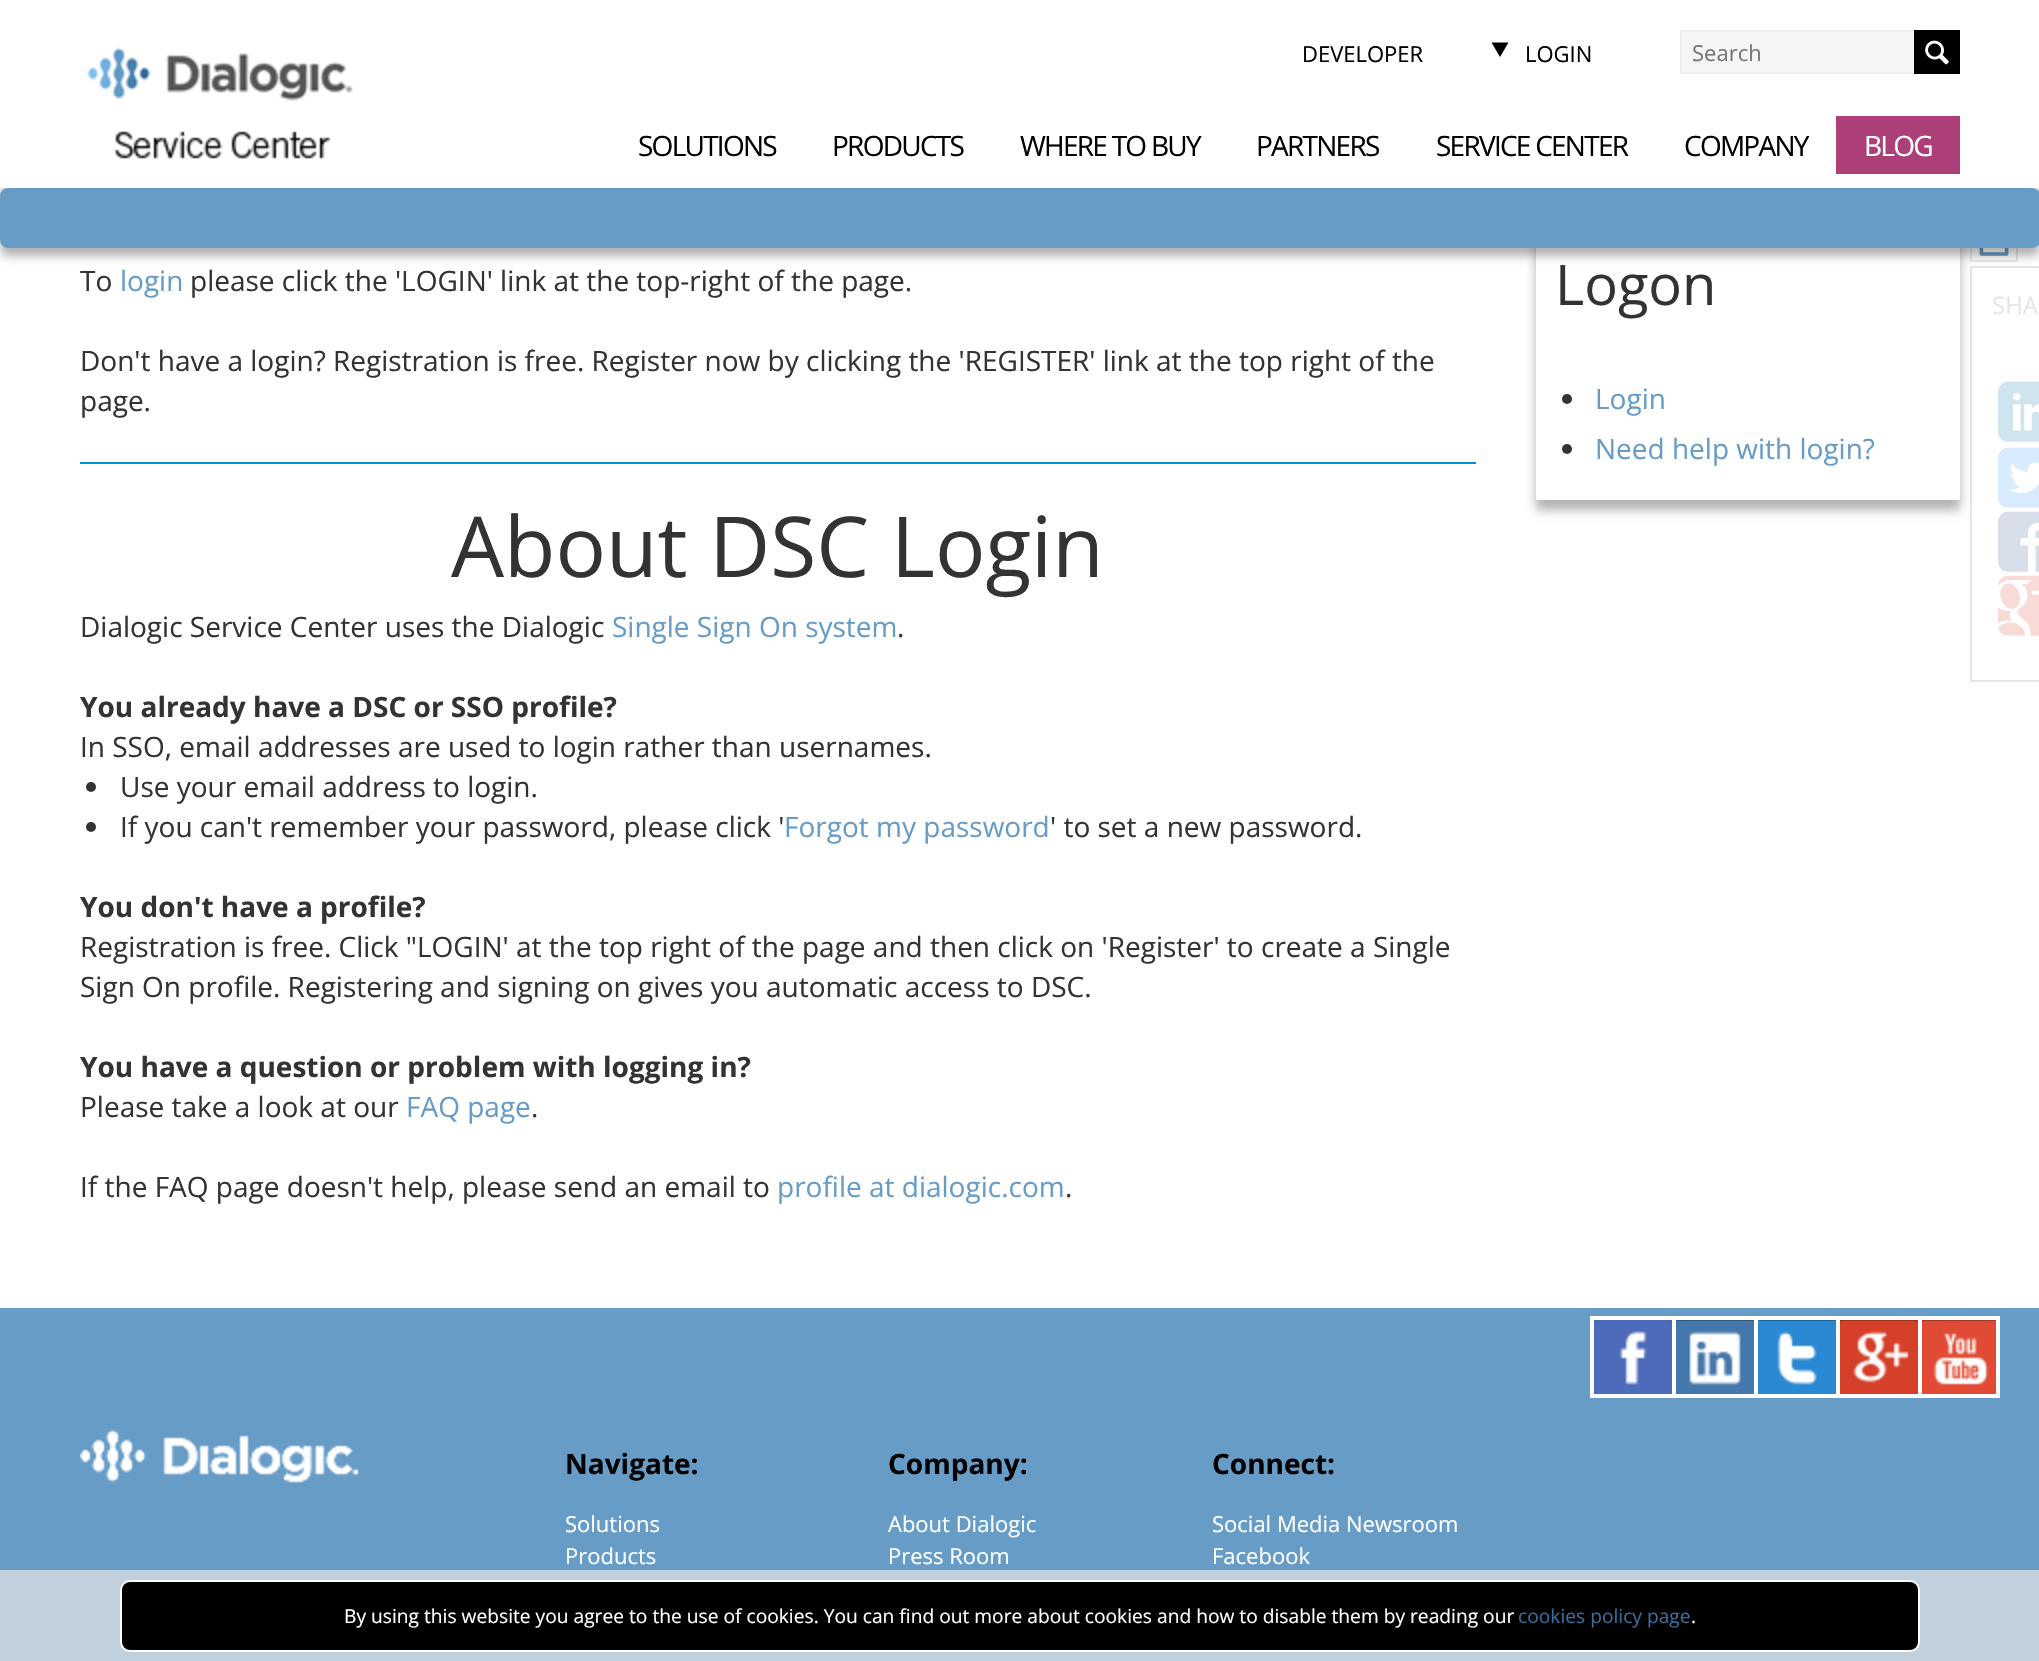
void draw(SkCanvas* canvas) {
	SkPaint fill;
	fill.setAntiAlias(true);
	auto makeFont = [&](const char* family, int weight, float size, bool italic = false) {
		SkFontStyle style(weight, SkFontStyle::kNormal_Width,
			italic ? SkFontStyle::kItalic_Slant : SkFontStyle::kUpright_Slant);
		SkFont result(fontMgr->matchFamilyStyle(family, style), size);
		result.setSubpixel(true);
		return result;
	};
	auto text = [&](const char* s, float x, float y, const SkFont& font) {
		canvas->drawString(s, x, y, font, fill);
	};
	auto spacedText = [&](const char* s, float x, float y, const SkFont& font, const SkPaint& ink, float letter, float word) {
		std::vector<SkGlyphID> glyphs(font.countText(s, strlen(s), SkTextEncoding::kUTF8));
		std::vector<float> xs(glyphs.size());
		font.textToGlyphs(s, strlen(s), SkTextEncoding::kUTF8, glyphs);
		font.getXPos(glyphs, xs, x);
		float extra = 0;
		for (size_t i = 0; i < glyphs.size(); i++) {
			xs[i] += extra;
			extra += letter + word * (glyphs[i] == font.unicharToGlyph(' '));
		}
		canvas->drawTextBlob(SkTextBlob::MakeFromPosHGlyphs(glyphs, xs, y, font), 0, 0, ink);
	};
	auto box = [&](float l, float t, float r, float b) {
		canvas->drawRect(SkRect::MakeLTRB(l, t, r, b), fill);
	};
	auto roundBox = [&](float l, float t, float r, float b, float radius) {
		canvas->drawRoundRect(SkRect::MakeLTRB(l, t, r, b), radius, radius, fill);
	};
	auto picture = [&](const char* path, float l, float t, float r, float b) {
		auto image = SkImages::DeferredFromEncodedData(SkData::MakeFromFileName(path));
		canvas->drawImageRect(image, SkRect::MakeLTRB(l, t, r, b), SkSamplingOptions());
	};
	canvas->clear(0xFFFFFFFF);
	canvas->save();
	canvas->clipPath(SkPathBuilder(SkPathFillType::kEvenOdd).moveTo(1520, 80).lineTo(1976, 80).lineTo(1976, 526).lineTo(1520, 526).close().moveTo(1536, 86).lineTo(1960, 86).lineTo(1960, 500).lineTo(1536, 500).close().detach(), true);
	fill.setColor(0x4D000000);
	fill.setMaskFilter(SkMaskFilter::MakeBlur(kNormal_SkBlurStyle, 5));
	canvas->drawRect(SkRect::MakeLTRB(1536, 96, 1960, 510), fill);
	fill.setMaskFilter(nullptr);
	canvas->restore();
	fill.setStyle(SkPaint::kStroke_Style);
	fill.setStrokeWidth(2);
	fill.setColor(0xFFE8E6E6);
	canvas->drawRect(SkRect::MakeLTRB(1971, 215, 2017, 261), fill);
	fill.setStyle(SkPaint::kFill_Style);
	fill.setColor(0x80050505);
	fill.setMaskFilter(SkMaskFilter::MakeBlur(kNormal_SkBlurStyle, 10));
	canvas->drawRect(SkRect::MakeLTRB(0, 0, 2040, 190), fill);
	fill.setMaskFilter(nullptr);
	fill.setColor(0xFFFFFFFF);
	box(0, 0, 2039, 188);
	fill.setColor(0xFFE6E6E6);
	box(0, 188, 2039, 190);
	picture("image0.png", 87, 47, 353, 101);
	picture("image1.png", 113, 131, 331, 159);
	fill.setColor(0xFF000000);
	canvas->drawPath(SkPathBuilder().moveTo(1508.5f, 42.5f).lineTo(1491.5f, 42.5f).lineTo(1500, 57).close().detach(), fill);
	fill.setColor(0xFFF5F5F5);
	box(1682, 32, 1914, 72);
	fill.setStyle(SkPaint::kStroke_Style);
	fill.setColor(0xFFEEEEEE);
	canvas->drawRect(SkRect::MakeLTRB(1681, 31, 1959, 73), fill);
	fill.setStyle(SkPaint::kFill_Style);
	fill.setColor(0xFF000000);
	box(1914, 30, 1960, 74);
	picture("image2.png", 1925, 40, 1949, 65);
	fill.setColor(0xFFAC3F77);
	box(1836, 116, 1960, 174);
	picture("image3.png", 1979, 248, 2009, 256);
	fill.setStyle(SkPaint::kStroke_Style);
	fill.setColor(0xFFE5E5E5);
	canvas->drawRect(SkRect::MakeLTRB(1971, 267, 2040, 681), fill);
	fill.setStyle(SkPaint::kFill_Style);
	fill.setColor(0x4D000000);
	fill.setMaskFilter(SkMaskFilter::MakeBlur(kNormal_SkBlurStyle, 5));
	canvas->drawRoundRect(SkRect::MakeLTRB(0, 196, 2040, 256), 8, 8, fill);
	fill.setMaskFilter(nullptr);
	fill.setColor(0xFF679CC7);
	roundBox(0, 188, 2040, 248, 8);
	fill.setColor(0xFF0096D3);
	box(80, 462, 1476, 464);
	fill.setColor(0xFF333333);
	canvas->drawCircle(91, 787, 5, fill);
	canvas->drawCircle(91, 827, 5, fill);
	canvas->drawCircle(1567, 399, 5, fill);
	canvas->drawCircle(1567, 449, 5, fill);
	picture("image4.png", 1998, 381, 2039, 442);
	picture("image5.png", 1998, 447, 2039, 508);
	picture("image6.png", 1998, 511, 2039, 572);
	picture("image7.png", 1998, 575, 2039, 636);
	fill.setColor(0xFF679CC7);
	box(0, 1308, 2039, 1570);
	fill.setColor(0xFFC0D0DD);
	box(0, 1570, 2039, 1661);
	picture("image8.png", 1594, 1320, 1672, 1394);
	fill.setColor(0xFFFFFFFF);
	box(1590, 1316, 1918, 1320);
	box(1590, 1394, 1918, 1398);
	box(1590, 1316, 1594, 1398);
	picture("image9.png", 1676, 1320, 1754, 1394);
	box(1672, 1316, 1676, 1398);
	picture("image10.png", 1758, 1320, 1836, 1394);
	box(1754, 1316, 1758, 1398);
	picture("image11.png", 1840, 1320, 1918, 1394);
	box(1836, 1316, 1840, 1398);
	picture("image12.png", 1922, 1320, 1996, 1394);
	fill.setStyle(SkPaint::kStroke_Style);
	fill.setStrokeWidth(4);
	canvas->drawRect(SkRect::MakeLTRB(1920, 1318, 1998, 1396), fill);
	picture("image13.png", 80, 1429, 359, 1483);
	fill.setStyle(SkPaint::kFill_Style);
	fill.setColor(0xFF000000);
	canvas->drawRoundRect(SkRect::MakeLTRB(121, 1581, 1919, 1651), 9, 9, fill);
	fill.setStyle(SkPaint::kStroke_Style);
	fill.setStrokeWidth(2);
	fill.setColor(0xFFFFFFFF);
	canvas->drawRoundRect(SkRect::MakeLTRB(121, 1581, 1919, 1651), 9, 9, fill);
	auto font1 = makeFont("Open Sans", 400, 22);
	fill.setStyle(SkPaint::kFill_Style);
	fill.setColor(0xFF000000);
	text("DEVELOPER", 1302, 62, font1);
	text("LOGIN", 1525, 62, font1);
	fill.setColor(0xFF757575);
	text("Search", 1692, 61, font1);
	auto font2 = makeFont("Open Sans", 400, 28);
	fill.setColor(0xFF000000);
	spacedText("SOLUTIONS", 638, 156, font2, fill, -1.75f, 0);
	spacedText("PRODUCTS", 832, 156, font2, fill, -1.75f, 0);
	spacedText("WHERE TO BUY", 1020, 156, font2, fill, -1.75f, 0);
	spacedText("PARTNERS", 1256, 156, font2, fill, -1.75f, 0);
	spacedText("SERVICE CENTER", 1436, 156, font2, fill, -1.75f, 0);
	spacedText("COMPANY", 1684, 156, font2, fill, -1.75f, 0);
	fill.setColor(0xFFFFFFFF);
	spacedText("BLOG", 1864, 156, font2, fill, -1.75f, 0);
	fill.setColor(0xFF333333);
	text("To", 80, 291, font2);
	fill.setColor(0xFF679CC7);
	text("login", 120, 291, font2);
	fill.setColor(0xFF333333);
	text("please click the 'LOGIN' link at the top-right of the page.", 190, 291, font2);
	text("Don't have a login? Registration is free. Register now by clicking the 'REGISTER' link at the top right of the", 80, 371, font2);
	text("page.", 80, 411, font2);
	auto font3 = makeFont("Open Sans", 400, 84);
	text("About DSC Login", 451, 577, font3);
	text("Dialogic Service Center uses the Dialogic", 80, 637, font2);
	fill.setColor(0xFF679CC7);
	text("Single Sign On system", 612, 637, font2);
	fill.setColor(0xFF333333);
	text(".", 897, 637, font2);
	auto font4 = makeFont("Open Sans", 700, 28);
	text("You already have a DSC or SSO profile?", 80, 717, font4);
	text("In SSO, email addresses are used to login rather than usernames.", 80, 757, font2);
	text("Use your email address to login.", 120, 797, font2);
	text("If you can't remember your password, please click '", 120, 837, font2);
	fill.setColor(0xFF679CC7);
	text("Forgot my password", 784, 837, font2);
	fill.setColor(0xFF333333);
	text("' to set a new password.", 1050, 837, font2);
	text("You don't have a profile?", 80, 917, font4);
	text("Registration is free. Click \"LOGIN' at the top right of the page and then click on 'Register' to create a Single", 80, 957, font2);
	text("Sign On profile. Registering and signing on gives you automatic access to DSC.", 80, 997, font2);
	text("You have a question or problem with logging in?", 80, 1077, font4);
	text("Please take a look at our", 80, 1117, font2);
	fill.setColor(0xFF679CC7);
	text("FAQ page", 406, 1117, font2);
	fill.setColor(0xFF333333);
	text(".", 531, 1117, font2);
	text("If the FAQ page doesn't help, please send an email to", 80, 1197, font2);
	fill.setColor(0xFF679CC7);
	text("profile at dialogic.com", 777, 1197, font2);
	fill.setColor(0xFF333333);
	text(".", 1065, 1197, font2);
	auto font5 = makeFont("Open Sans", 400, 56);
	text("Logon", 1555, 305, font5);
	fill.setColor(0xFF679CC7);
	text("Login", 1595, 409, font2);
	text("Need help with login?", 1595, 459, font2);
	auto font6 = makeFont("Open Sans", 400, 24);
	fill.setColor(0xFFE6E6E6);
	text("SHA", 1992, 314, font6);
	fill.setColor(0xFF000000);
	text("Navigate:", 565, 1474, font4);
	fill.setColor(0xFFFFFFFF);
	text("Solutions", 565, 1532, font1);
	text("Products", 565, 1564, font1);
	fill.setColor(0xFF000000);
	text("Company:", 888, 1474, font4);
	fill.setColor(0xFFFFFFFF);
	text("About Dialogic", 888, 1532, font1);
	text("Press Room", 888, 1564, font1);
	fill.setColor(0xFF000000);
	text("Connect:", 1212, 1474, font4);
	fill.setColor(0xFFFFFFFF);
	text("Social Media Newsroom", 1212, 1532, font1);
	text("Facebook", 1212, 1564, font1);
	auto font7 = makeFont("Open Sans", 400, 19.2f);
	text("By using this website you agree to the use of cookies. You can find out more about cookies and how to disable them by reading our", 344, 1623, font7);
	fill.setColor(0xFF3E6D9C);
	text("cookies policy page", 1518, 1623, font7);
	fill.setColor(0xFFFFFFFF);
	text(".", 1691, 1623, font7);
}
